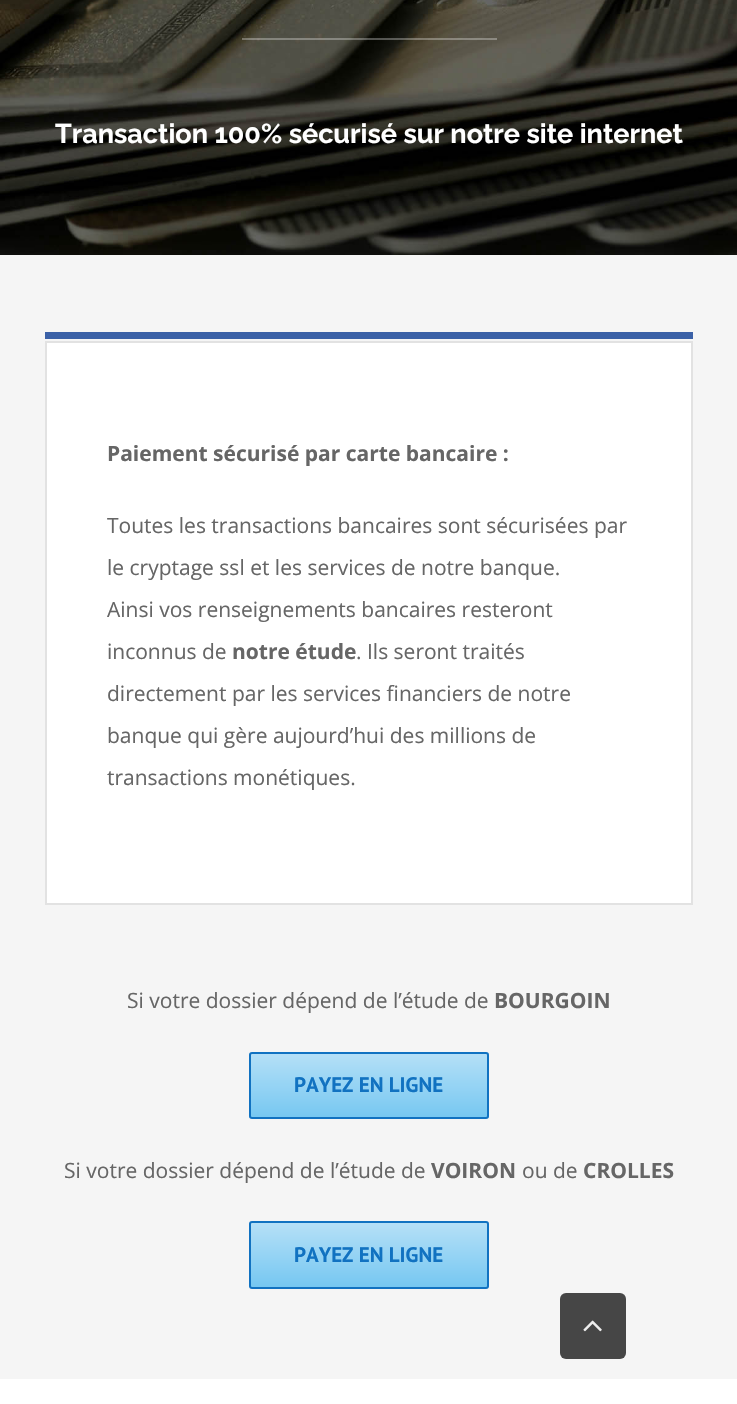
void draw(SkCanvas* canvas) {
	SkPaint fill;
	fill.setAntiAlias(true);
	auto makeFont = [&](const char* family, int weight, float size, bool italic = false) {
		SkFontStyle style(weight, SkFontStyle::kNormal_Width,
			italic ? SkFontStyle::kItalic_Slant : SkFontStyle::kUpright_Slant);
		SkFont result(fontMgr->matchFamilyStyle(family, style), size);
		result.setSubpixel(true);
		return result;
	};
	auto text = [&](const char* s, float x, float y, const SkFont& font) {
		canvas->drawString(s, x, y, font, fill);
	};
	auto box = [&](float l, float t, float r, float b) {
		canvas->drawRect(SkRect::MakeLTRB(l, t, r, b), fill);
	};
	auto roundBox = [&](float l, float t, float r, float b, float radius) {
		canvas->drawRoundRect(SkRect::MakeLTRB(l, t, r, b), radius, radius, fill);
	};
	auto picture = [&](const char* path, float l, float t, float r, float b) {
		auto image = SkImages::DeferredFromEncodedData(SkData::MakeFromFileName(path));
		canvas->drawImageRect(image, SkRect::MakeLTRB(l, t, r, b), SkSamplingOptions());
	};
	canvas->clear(0xFFF5F5F5);
	picture("image0.png", 0, 0, 737, 255);
	fill.setColor(0x4DFFFFFF);
	box(242, 38, 497, 40);
	fill.setColor(0xFF3B61A7);
	box(45, 332, 693, 339);
	fill.setColor(0xFFFFFFFF);
	canvas->drawRect(SkRect::MakeLTRB(46, 342, 692, 904), fill);
	fill.setStyle(SkPaint::kStroke_Style);
	fill.setStrokeWidth(2);
	fill.setColor(0xFFE2E2E2);
	canvas->drawRect(SkRect::MakeLTRB(46, 342, 692, 904), fill);
	canvas->save();
	canvas->clipPath(SkPathBuilder().moveTo(252, 1052).lineTo(486, 1052).cubicTo(487.5f, 1052, 489, 1053.5f, 489, 1055).lineTo(489, 1116).cubicTo(489, 1117.5f, 487.5f, 1119, 486, 1119).lineTo(252, 1119).cubicTo(250.5f, 1119, 249, 1117.5f, 249, 1116).lineTo(249, 1055).cubicTo(249, 1053.5f, 250.5f, 1052, 252, 1052).close().detach(), true);
	fill.setStyle(SkPaint::kFill_Style);
	{
		const SkColor colors[] = {0xFF76C7F1, 0xFFB5E0F7};
		const float stops[] = {0, 1};
		const SkPoint ends[] = {{369, 1118}, {369, 1053}};
		fill.setShader(SkGradientShader::MakeLinear(ends, colors, stops, 2, SkTileMode::kClamp));
		fill.setAlpha(255);
	}
	box(249, 1053, 489, 1118);
	canvas->restore();
	fill.setStyle(SkPaint::kStroke_Style);
	fill.setShader(nullptr);
	fill.setColor(0xFF1172C1);
	canvas->drawRoundRect(SkRect::MakeLTRB(250, 1053, 488, 1118), 2, 2, fill);
	canvas->save();
	canvas->clipPath(SkPathBuilder().moveTo(252, 1221).lineTo(486, 1221).cubicTo(487.5f, 1221, 489, 1222.5f, 489, 1224).lineTo(489, 1286).cubicTo(489, 1287.5f, 487.5f, 1289, 486, 1289).lineTo(252, 1289).cubicTo(250.5f, 1289, 249, 1287.5f, 249, 1286).lineTo(249, 1224).cubicTo(249, 1222.5f, 250.5f, 1221, 252, 1221).close().detach(), true);
	fill.setStyle(SkPaint::kFill_Style);
	{
		const SkColor colors[] = {0xFF76C7F1, 0xFFB5E0F7};
		const float stops[] = {0, 1};
		const SkPoint ends[] = {{369, 1287}, {369, 1223}};
		fill.setShader(SkGradientShader::MakeLinear(ends, colors, stops, 2, SkTileMode::kClamp));
		fill.setAlpha(255);
	}
	box(249, 1223, 489, 1287);
	canvas->restore();
	fill.setStyle(SkPaint::kStroke_Style);
	fill.setShader(nullptr);
	fill.setColor(0xFF1172C1);
	canvas->drawRoundRect(SkRect::MakeLTRB(250, 1222, 488, 1288), 2, 2, fill);
	fill.setStyle(SkPaint::kFill_Style);
	fill.setColor(0xFFFFFFFF);
	box(0, 1379, 737, 1404);
	fill.setColor(0xFF464646);
	roundBox(560, 1293, 626, 1359, 6);
	picture("image1.png", 583, 1320, 602, 1332);
	auto font1 = makeFont("Raleway", 100, 27);
	fill.setColor(0xFFFFFFFF);
	text("Transaction 100% sécurisé sur notre site internet", 55, 143, font1);
	auto font2 = makeFont("Open Sans", 700, 21);
	fill.setColor(0xFF666666);
	text("Paiement sécurisé par carte bancaire :", 107, 461, font2);
	auto font3 = makeFont("Open Sans", 400, 21);
	text("Toutes les transactions bancaires sont sécurisées par", 107, 533, font3);
	text("le cryptage ssl et les services de notre banque.", 107, 575, font3);
	text("Ainsi vos renseignements bancaires resteront", 107, 617, font3);
	text("inconnus de", 107, 659, font3);
	text("notre étude", 232, 659, font2);
	text(". Ils seront traités", 356, 659, font3);
	text("directement par les services financiers de notre", 107, 701, font3);
	text("banque qui gère aujourd’hui des millions de", 107, 743, font3);
	text("transactions monétiques.", 107, 785, font3);
	text("Si votre dossier dépend de l’étude de", 127, 1008, font3);
	text("BOURGOIN", 494, 1008, font2);
	auto font4 = makeFont("PT Sans", 700, 21);
	fill.setColor(0xFF1172C1);
	text("PAYEZ EN LIGNE", 294, 1092, font4);
	fill.setColor(0xFF666666);
	text("Si votre dossier dépend de l’étude de", 64, 1178, font3);
	text("VOIRON", 431, 1178, font2);
	text("ou de", 522, 1178, font3);
	text("CROLLES", 583, 1178, font2);
	fill.setColor(0xFF1172C1);
	text("PAYEZ EN LIGNE", 294, 1262, font4);
}
